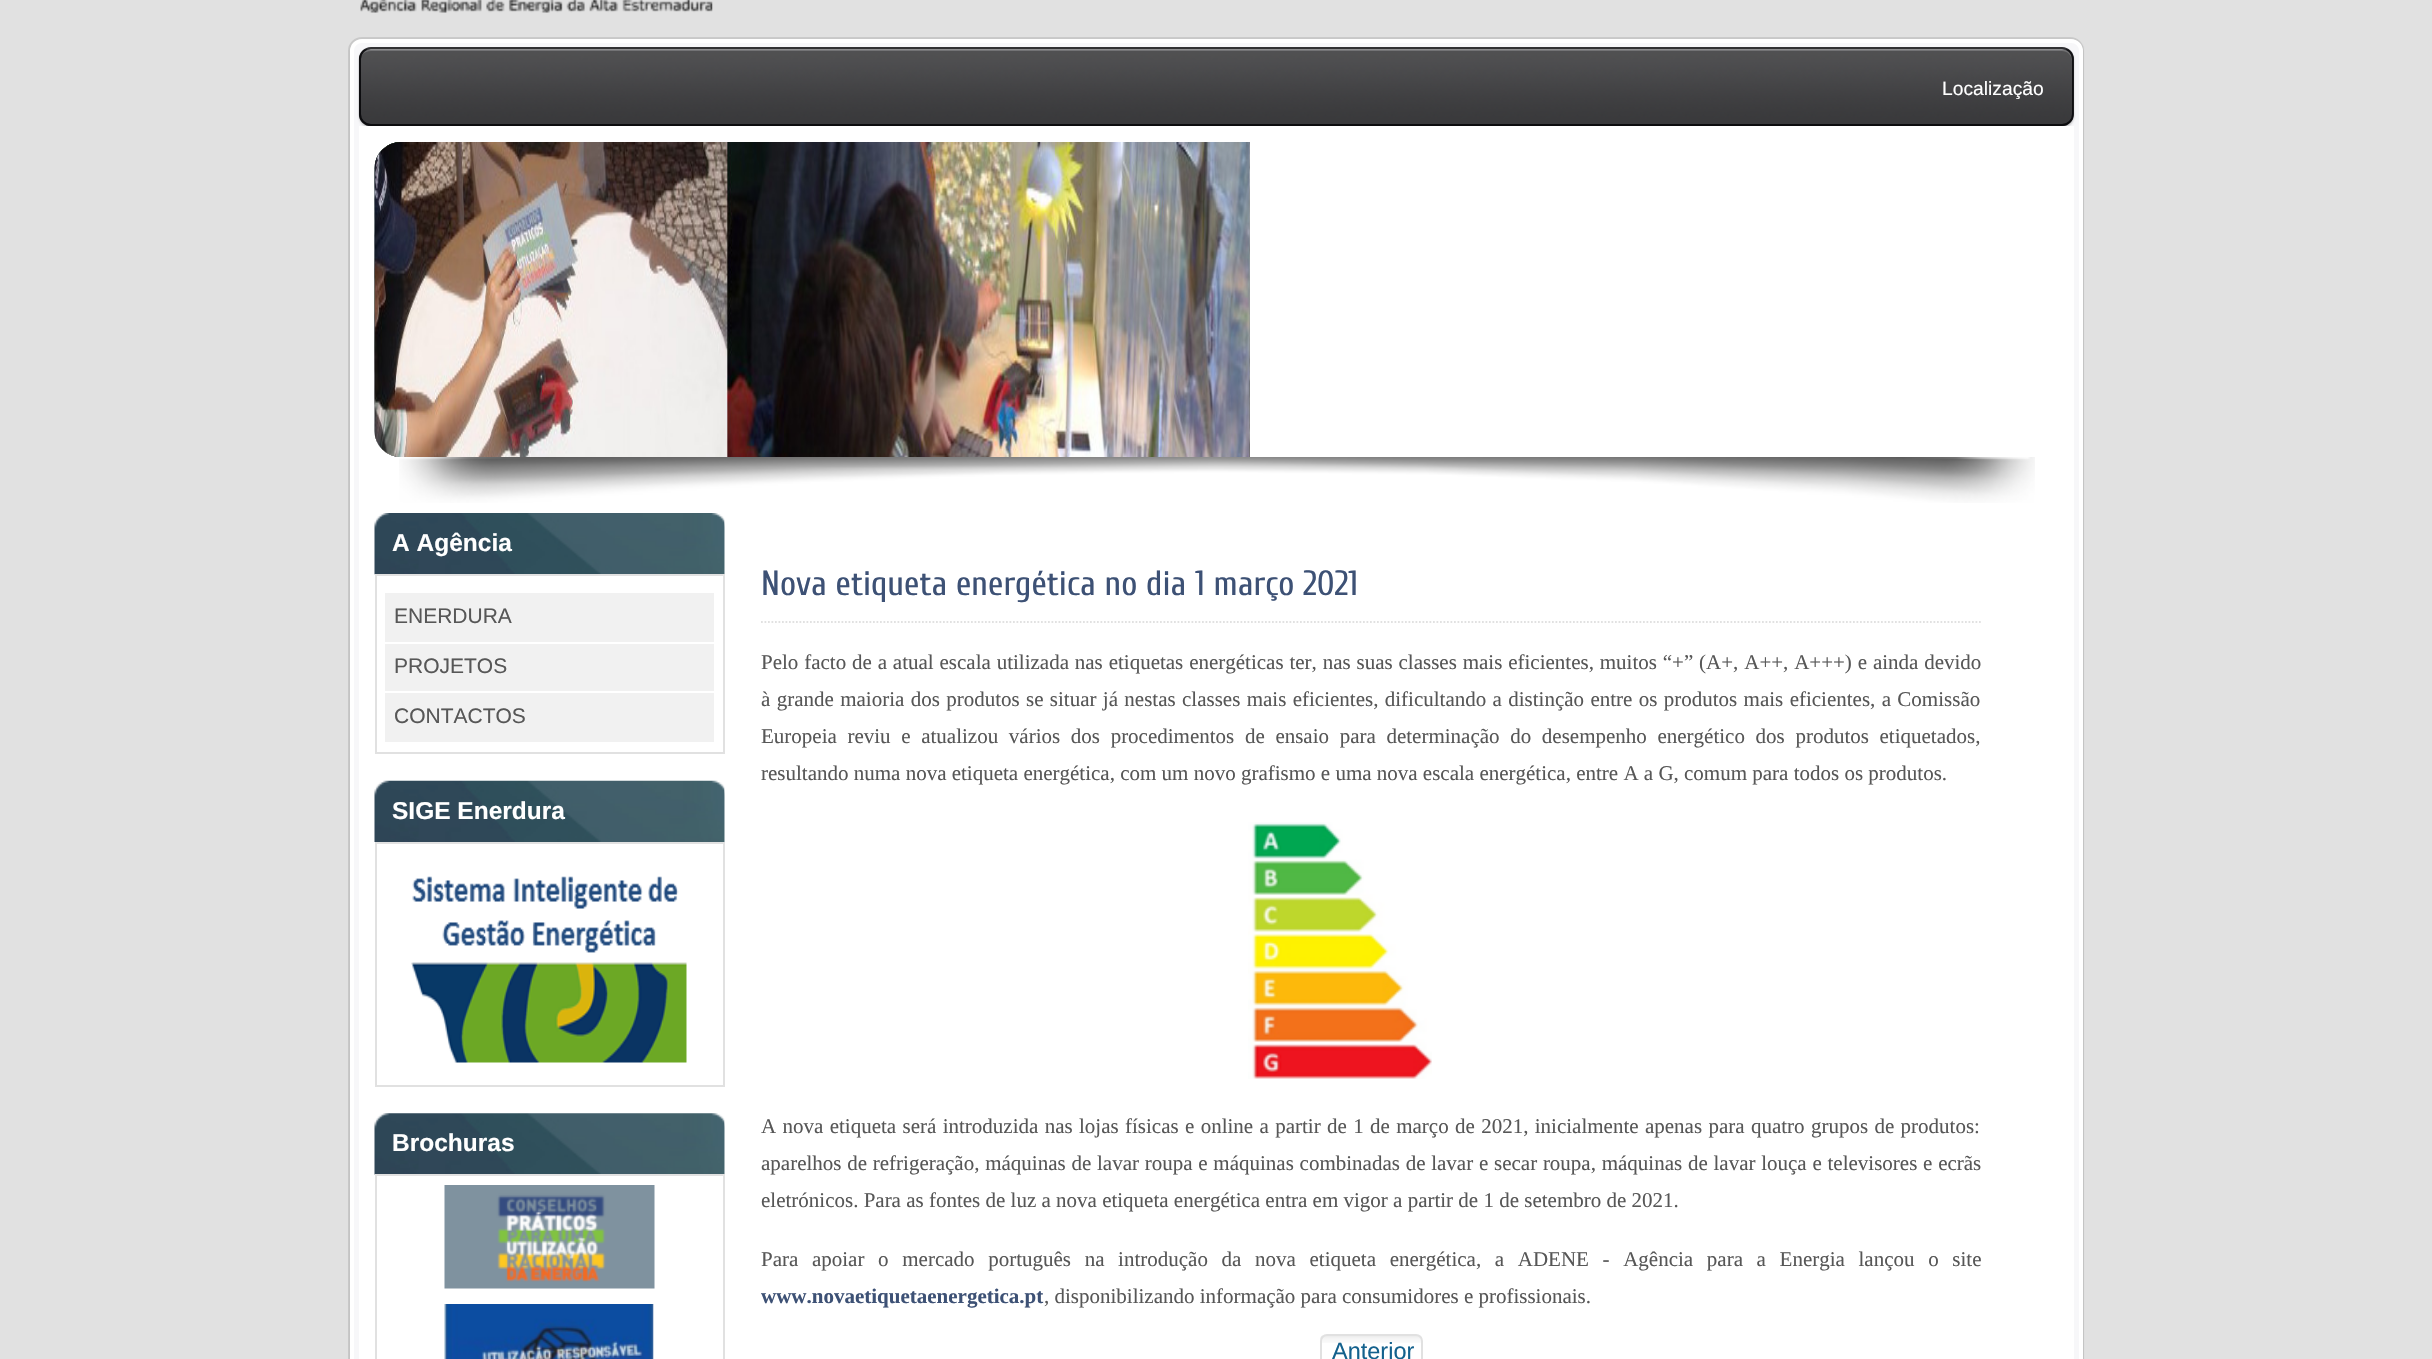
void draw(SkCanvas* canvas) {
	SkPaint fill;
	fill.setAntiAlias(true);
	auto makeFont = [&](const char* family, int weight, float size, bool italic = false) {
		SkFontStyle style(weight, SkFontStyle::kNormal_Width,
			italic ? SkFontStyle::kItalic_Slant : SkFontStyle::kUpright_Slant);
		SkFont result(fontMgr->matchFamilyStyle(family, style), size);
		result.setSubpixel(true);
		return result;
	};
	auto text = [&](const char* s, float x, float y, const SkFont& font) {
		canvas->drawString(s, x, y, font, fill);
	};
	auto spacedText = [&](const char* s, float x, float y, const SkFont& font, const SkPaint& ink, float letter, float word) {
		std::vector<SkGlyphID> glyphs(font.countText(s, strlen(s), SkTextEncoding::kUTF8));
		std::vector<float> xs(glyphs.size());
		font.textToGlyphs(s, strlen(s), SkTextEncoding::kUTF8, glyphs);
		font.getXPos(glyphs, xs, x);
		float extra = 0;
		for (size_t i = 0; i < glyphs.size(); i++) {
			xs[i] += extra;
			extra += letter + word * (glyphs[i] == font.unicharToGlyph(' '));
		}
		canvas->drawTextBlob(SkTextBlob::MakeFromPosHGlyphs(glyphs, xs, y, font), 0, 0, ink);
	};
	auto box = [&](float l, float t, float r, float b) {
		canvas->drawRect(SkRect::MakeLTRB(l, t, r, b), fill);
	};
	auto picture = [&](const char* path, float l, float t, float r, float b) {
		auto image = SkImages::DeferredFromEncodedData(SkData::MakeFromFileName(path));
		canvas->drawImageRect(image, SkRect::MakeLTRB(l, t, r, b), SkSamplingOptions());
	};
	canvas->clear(0xFFE1E1E1);
	picture("image0.png", 360, 0, 713, 13);
	fill.setColor(0x1A000002);
	fill.setMaskFilter(SkMaskFilter::MakeBlur(kNormal_SkBlurStyle, 1));
	canvas->drawRoundRect(SkRect::MakeLTRB(350, 40, 2083, 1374), 12, 12, fill);
	fill.setMaskFilter(nullptr);
	fill.setStyle(SkPaint::kStroke_Style);
	fill.setStrokeWidth(2);
	canvas->drawRoundRect(SkRect::MakeLTRB(349, 38, 2083, 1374), 13, 13, fill);
	fill.setStyle(SkPaint::kFill_Style);
	fill.setColor(0xFFF7F7F9);
	canvas->drawRoundRect(SkRect::MakeLTRB(352, 41, 2081, 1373), 10, 10, fill);
	fill.setStyle(SkPaint::kStroke_Style);
	fill.setStrokeWidth(4);
	fill.setColor(0xFFFFFFFF);
	canvas->drawRoundRect(SkRect::MakeLTRB(352, 41, 2081, 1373), 10, 10, fill);
	fill.setStyle(SkPaint::kFill_Style);
	fill.setColor(0x33000002);
	fill.setMaskFilter(SkMaskFilter::MakeBlur(kNormal_SkBlurStyle, 1));
	canvas->drawRoundRect(SkRect::MakeLTRB(359, 49, 2074, 128), 12, 12, fill);
	fill.setMaskFilter(nullptr);
	picture("image1.png", 358, 49, 2074, 126);
	fill.setColor(0x33FDFDFF);
	canvas->drawPath(SkPathBuilder().moveTo(371, 51).lineTo(2062, 51).cubicTo(2067, 51, 2072, 55, 2072, 61).lineTo(2072, 60).cubicTo(2072, 54, 2067, 49, 2061, 49).lineTo(372, 49).cubicTo(368, 49, 364, 51, 362, 55).cubicTo(364, 52, 368, 51, 371, 51).close().detach(), fill);
	fill.setStyle(SkPaint::kStroke_Style);
	fill.setStrokeWidth(2);
	fill.setColor(0xCC000002);
	canvas->drawRoundRect(SkRect::MakeLTRB(360, 48, 2073, 125), 11, 11, fill);
	fill.setStyle(SkPaint::kFill_Style);
	fill.setColor(0xFFFFFFFF);
	box(359, 126, 2074, 1359);
	picture("image2.png", 374, 142, 1250, 457);
	picture("image3.png", 374, 142, 1250, 457);
	picture("image4.png", 374, 142, 1250, 457);
	picture("image5.png", 374, 142, 1250, 457);
	picture("image6.png", 374, 142, 1250, 457);
	picture("image7.png", 374, 142, 1250, 457);
	picture("image8.png", 399, 457, 2035, 503);
	picture("image9.png", 374, 513, 725, 575);
	fill.setStyle(SkPaint::kStroke_Style);
	fill.setColor(0xFFE1E1E1);
	canvas->drawRect(SkRect::MakeLTRB(376, 575, 724, 753), fill);
	fill.setStyle(SkPaint::kFill_Style);
	fill.setColor(0xFFF1F1F1);
	box(385, 593, 714, 642);
	box(385, 644, 714, 691);
	box(385, 693, 714, 742);
	picture("image10.png", 374, 780, 725, 842);
	fill.setStyle(SkPaint::kStroke_Style);
	fill.setColor(0xFFE1E1E1);
	canvas->drawRect(SkRect::MakeLTRB(376, 843, 724, 1086), fill);
	picture("image11.png", 411, 876, 687, 1063);
	picture("image12.png", 374, 1113, 725, 1175);
	canvas->drawRect(SkRect::MakeLTRB(376, 1175, 724, 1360), fill);
	picture("image13.png", 444, 1185, 655, 1289);
	picture("image14.png", 444, 1304, 654, 1359);
	fill.setStrokeWidth(1.8f);
	fill.setPathEffect(SkDashPathEffect::Make({{1.75f, 1.75f}}, 0));
	canvas->drawPath(SkPathBuilder().moveTo(761, 622).lineTo(1981, 622).detach(), fill);
	fill.setPathEffect(nullptr);
	picture("image15.png", 1248, 822, 1432, 1079);
	picture("image16.png", 1320, 1335, 1422, 1343);
	fill.setStrokeWidth(2);
	canvas->drawRoundRect(SkRect::MakeLTRB(1321, 1335, 1422, 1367), 6, 6, fill);
	auto font1 = makeFont("Liberation Sans", 400, 19.25f);
	fill.setStyle(SkPaint::kFill_Style);
	fill.setColor(0xFFFFFFFF);
	text("Localização", 1942, 95, font1);
	auto font2 = makeFont("Liberation Sans", 700, 24.5f);
	text("A Agência", 392, 551, font2);
	auto font3 = makeFont("Liberation Sans", 400, 21);
	fill.setColor(0xFF575757);
	text("ENERDURA", 394, 623, font3);
	text("PROJETOS", 394, 673, font3);
	text("CONTACTOS", 394, 723, font3);
	fill.setColor(0xFFFFFFFF);
	text("SIGE Enerdura", 392, 819, font2);
	text("Brochuras", 392, 1151, font2);
	auto font4 = makeFont("Cuprum", 400, 35);
	fill.setColor(0xFF3D5175);
	text("Nova etiqueta energética no dia 1 março 2021", 761, 595, font4);
	auto font5 = makeFont("Liberation Serif", 400, 21);
	fill.setColor(0xFF575757);
	spacedText("Pelo facto de a atual escala utilizada nas etiquetas energéticas ter, nas suas classes mais eficientes, muitos “+” (A+, A++, A+++) e ainda devido", 761, 669, font5, fill, 0, 0.6f);
	spacedText("à grande maioria dos produtos se situar já nestas classes mais eficientes, dificultando a distinção entre os produtos mais eficientes, a Comissão", 761, 706, font5, fill, 0, 1.1f);
	spacedText("Europeia reviu e atualizou vários dos procedimentos de ensaio para determinação do desempenho energético dos produtos etiquetados,", 761, 743, font5, fill, 0, 5.4f);
	text("resultando numa nova etiqueta energética, com um novo grafismo e uma nova escala energética, entre A a G, comum para todos os produtos.", 761, 780, font5);
	spacedText("A nova etiqueta será introduzida nas lojas físicas e online a partir de 1 de março de 2021, inicialmente apenas para quatro grupos de produtos:", 761, 1133, font5, fill, 0, 1.1f);
	spacedText("aparelhos de refrigeração, máquinas de lavar roupa e máquinas combinadas de lavar e secar roupa, máquinas de lavar louça e televisores e ecrãs", 761, 1170, font5, fill, 0, 0.5f);
	text("eletrónicos. Para as fontes de luz a nova etiqueta energética entra em vigor a partir de 1 de setembro de 2021.", 761, 1207, font5);
	spacedText("Para apoiar o mercado português na introdução da nova etiqueta energética, a ADENE - Agência para a Energia lançou o site", 761, 1266, font5, fill, 0, 8.4f);
	auto font6 = makeFont("Liberation Serif", 700, 21);
	fill.setColor(0xFF3D5175);
	text("www.novaetiquetaenergetica.pt", 761, 1303, font6);
	fill.setColor(0xFF575757);
	text(", disponibilizando informação para consumidores e profissionais.", 1044, 1303, font5);
	auto font7 = makeFont("Liberation Sans", 400, 23.5f);
	fill.setColor(0xFF13618D);
	text("Anterior", 1332, 1359, font7);
}
